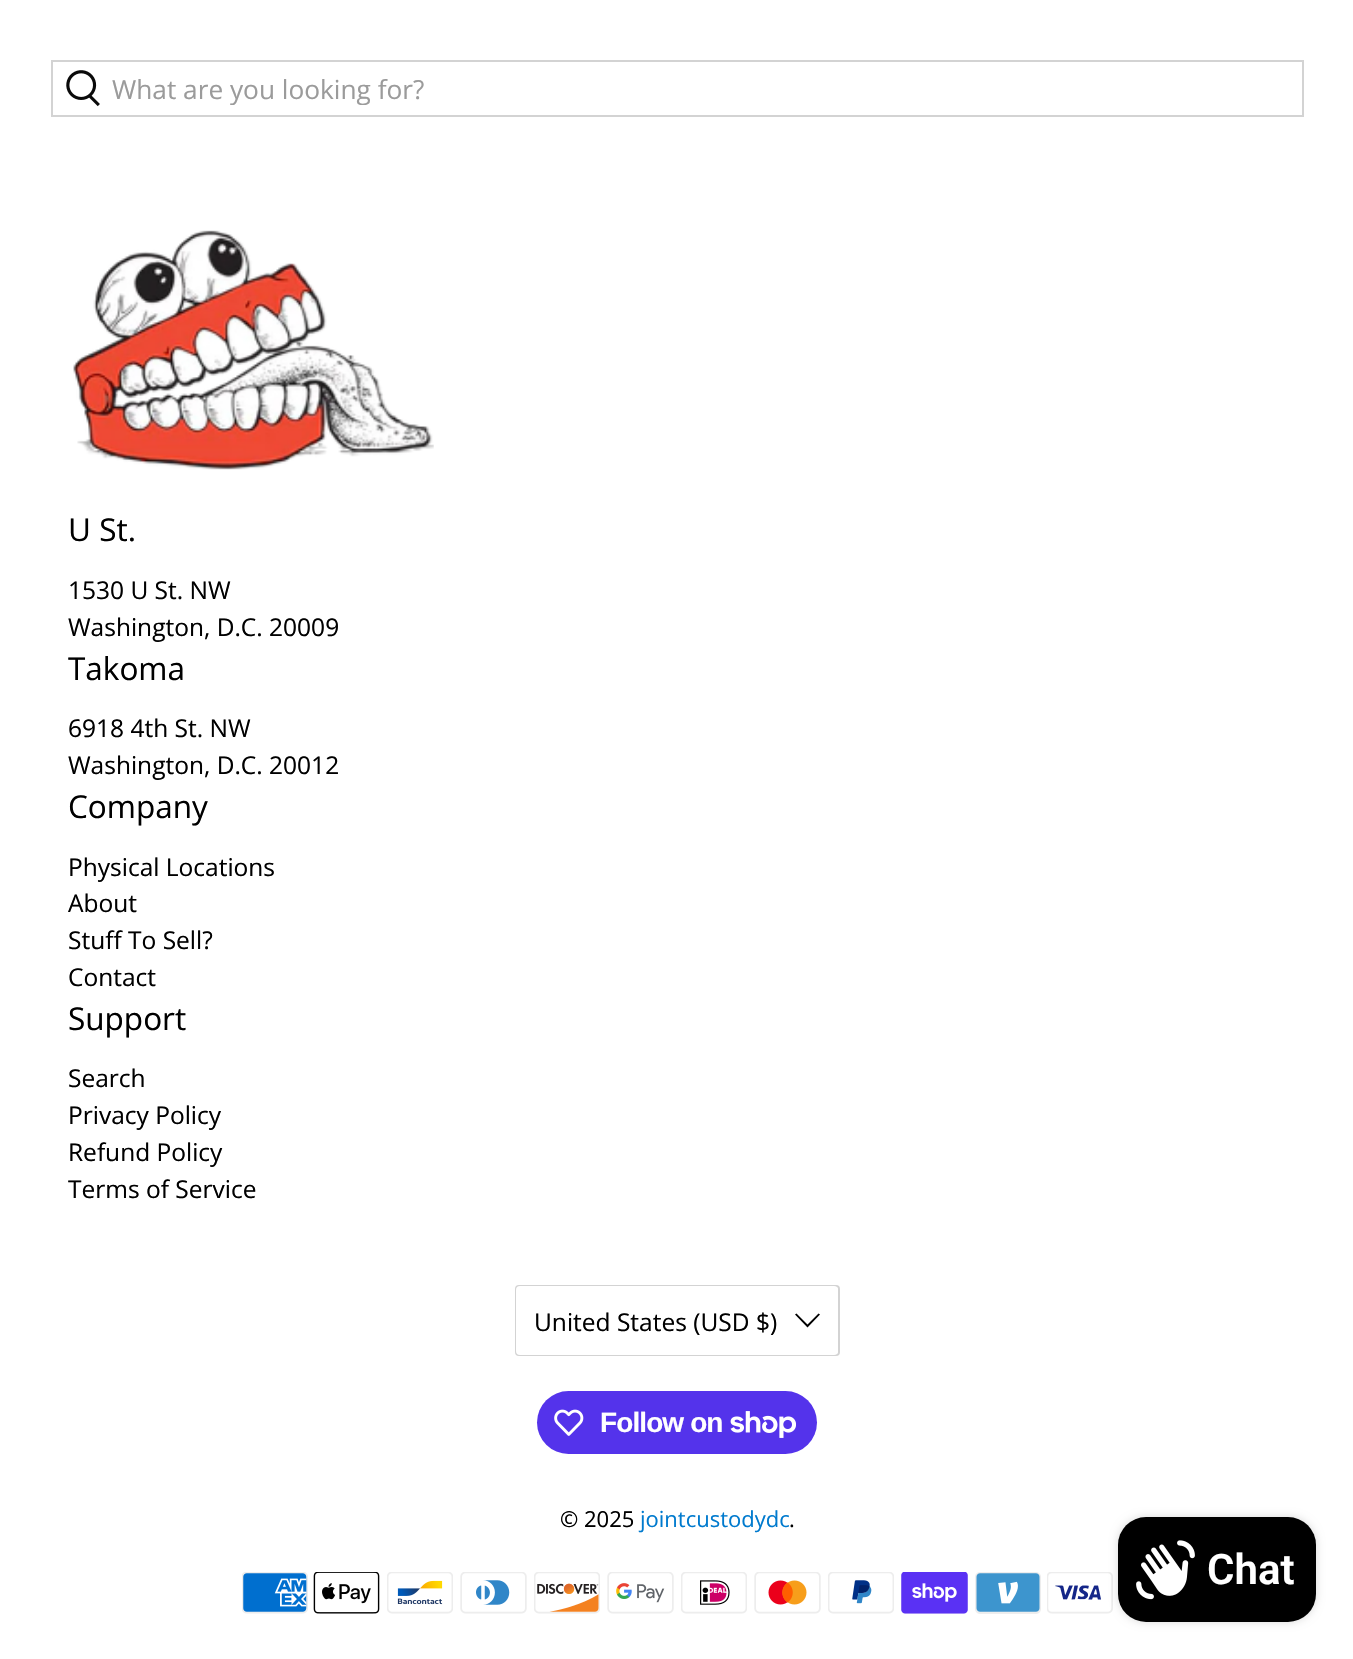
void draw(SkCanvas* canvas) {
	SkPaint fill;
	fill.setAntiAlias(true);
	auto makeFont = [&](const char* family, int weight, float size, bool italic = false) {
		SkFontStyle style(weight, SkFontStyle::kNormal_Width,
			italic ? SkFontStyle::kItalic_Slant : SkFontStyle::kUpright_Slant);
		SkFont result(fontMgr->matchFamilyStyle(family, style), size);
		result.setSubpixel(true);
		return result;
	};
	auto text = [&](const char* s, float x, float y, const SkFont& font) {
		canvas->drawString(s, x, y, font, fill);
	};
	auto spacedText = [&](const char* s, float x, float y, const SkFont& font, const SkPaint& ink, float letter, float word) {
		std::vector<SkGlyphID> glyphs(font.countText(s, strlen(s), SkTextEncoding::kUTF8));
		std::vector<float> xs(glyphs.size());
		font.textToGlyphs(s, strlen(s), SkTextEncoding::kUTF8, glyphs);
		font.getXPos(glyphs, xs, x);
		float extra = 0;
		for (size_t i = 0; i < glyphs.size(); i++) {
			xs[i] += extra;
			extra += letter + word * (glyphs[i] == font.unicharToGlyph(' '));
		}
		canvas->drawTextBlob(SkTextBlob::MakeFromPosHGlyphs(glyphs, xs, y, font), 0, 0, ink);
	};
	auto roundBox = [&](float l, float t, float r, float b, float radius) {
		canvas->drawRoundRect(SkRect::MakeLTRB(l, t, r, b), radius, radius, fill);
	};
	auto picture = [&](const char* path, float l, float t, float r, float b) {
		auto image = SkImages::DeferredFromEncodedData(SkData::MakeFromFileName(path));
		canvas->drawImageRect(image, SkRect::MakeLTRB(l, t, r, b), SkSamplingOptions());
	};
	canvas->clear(0xFFFFFFFF);
	fill.setStyle(SkPaint::kStroke_Style);
	fill.setStrokeWidth(2);
	fill.setColor(0xFFD3D3D3);
	canvas->drawRect(SkRect::MakeLTRB(52, 61, 1303, 116), fill);
	picture("image0.png", 66, 70, 100, 107);
	picture("image1.png", 73, 230, 434, 470);
	canvas->drawRoundRect(SkRect::MakeLTRB(516, 1286, 839, 1355), 3, 3, fill);
	fill.setStyle(SkPaint::kFill_Style);
	fill.setColor(0xFFFFFFFF);
	roundBox(516, 1286, 838, 1355, 4);
	fill.setColor(0xFF000000);
	canvas->drawPath(SkPathBuilder().moveTo(807.5f, 1327.5f).lineTo(795, 1314.5f).lineTo(796.5f, 1313.5f).lineTo(807.5f, 1324.5f).lineTo(818.5f, 1313.5f).lineTo(820, 1314.5f).close().detach(), fill);
	fill.setColor(0xFF5433EB);
	roundBox(537, 1391, 817, 1454, 31.5f);
	picture("image2.png", 554, 1409, 584, 1436);
	picture("image3.png", 730, 1411, 796, 1438);
	picture("image4.png", 242, 1572, 308, 1614);
	picture("image5.png", 313, 1572, 380, 1614);
	picture("image6.png", 387, 1572, 453, 1614);
	picture("image7.png", 460, 1572, 527, 1614);
	picture("image8.png", 534, 1572, 600, 1614);
	picture("image9.png", 607, 1572, 674, 1614);
	picture("image10.png", 681, 1572, 747, 1614);
	picture("image11.png", 754, 1572, 821, 1614);
	picture("image12.png", 828, 1572, 894, 1614);
	picture("image13.png", 901, 1572, 968, 1614);
	picture("image14.png", 975, 1572, 1041, 1614);
	picture("image15.png", 1047, 1572, 1113, 1614);
	fill.setColor(0x26000000);
	fill.setMaskFilter(SkMaskFilter::MakeBlur(kNormal_SkBlurStyle, 4.5f));
	canvas->drawRoundRect(SkRect::MakeLTRB(1118, 1517, 1316, 1622), 28, 28, fill);
	fill.setMaskFilter(nullptr);
	fill.setColor(0xFF000000);
	roundBox(1118, 1517, 1316, 1622, 28);
	picture("image16.png", 1136, 1540, 1195, 1600);
	canvas->save();
	canvas->clipRect(SkRect::MakeLTRB(112, 70, 1286, 105));
	auto font1 = makeFont("Open Sans", 400, 26.25f);
	fill.setColor(0xFF9B9B9B);
	text("What are you looking for?", 112, 99, font1);
	canvas->restore();
	auto font2 = makeFont("Open Sans", 400, 31.5f);
	fill.setColor(0xFF000000);
	text("U St.", 68, 541, font2);
	auto font3 = makeFont("Open Sans", 400, 24.5f);
	text("1530 U St. NW", 68, 599, font3);
	text("Washington, D.C. 20009", 68, 636, font3);
	text("Takoma", 68, 680, font2);
	text("6918 4th St. NW", 68, 737, font3);
	text("Washington, D.C. 20012", 68, 774, font3);
	text("Company", 68, 818, font2);
	text("Physical Locations", 68, 876, font3);
	text("About", 68, 912, font3);
	text("Stuff To Sell?", 68, 949, font3);
	text("Contact", 68, 986, font3);
	text("Support", 68, 1030, font2);
	text("Search", 68, 1087, font3);
	text("Privacy Policy", 68, 1124, font3);
	text("Refund Policy", 68, 1161, font3);
	text("Terms of Service", 68, 1198, font3);
	text("United States (USD $)", 534, 1331, font3);
	auto font4 = makeFont("Liberation Sans", 700, 28);
	fill.setColor(0xFFFFFFFF);
	spacedText("Follow on", 600, 1432, font4, fill, -0.9f, 0);
	auto font5 = makeFont("Open Sans", 400, 22);
	fill.setColor(0xFF000000);
	text("© 2025", 560, 1527, font5);
	fill.setColor(0xFF007ACE);
	text("jointcustodydc", 640, 1527, font5);
	fill.setColor(0xFF000000);
	text(".", 789, 1527, font5);
	auto font6 = makeFont("Roboto", 600, 42);
	fill.setColor(0xFFFFFFFF);
	text("Chat", 1207, 1584, font6);
}
